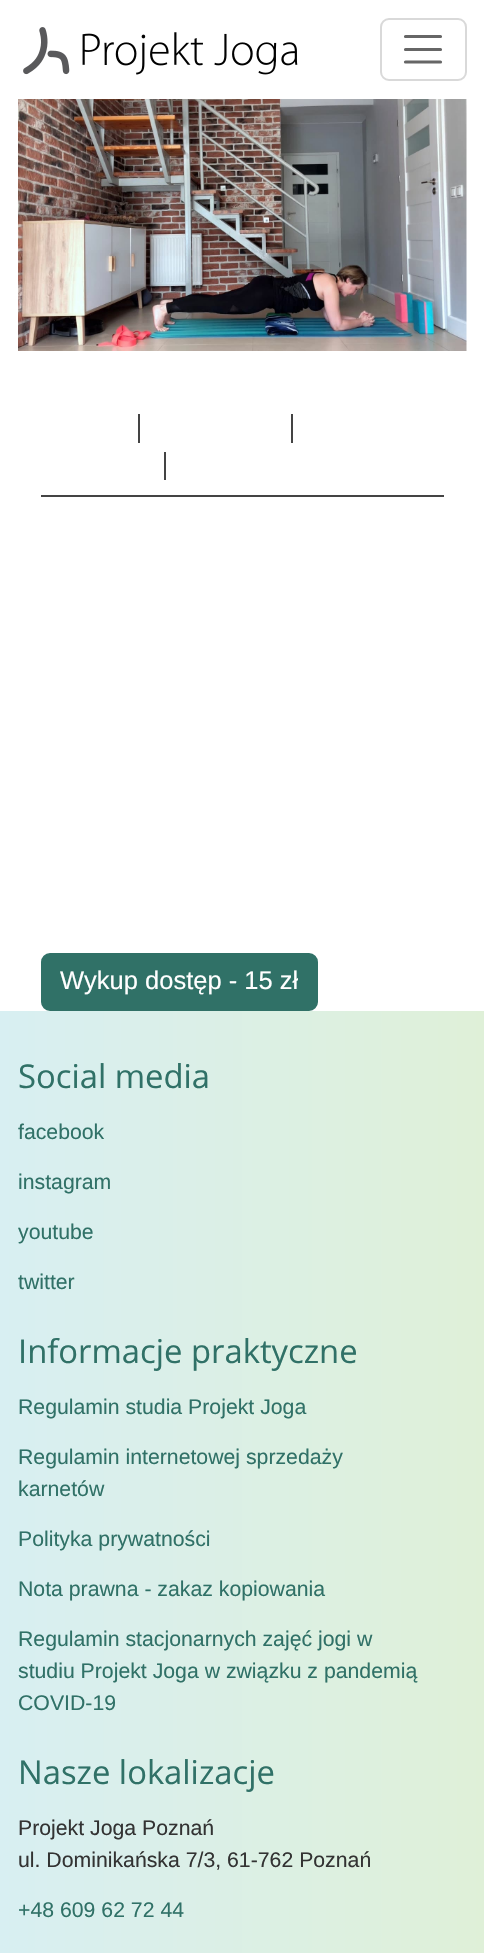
void draw(SkCanvas* canvas) {
	SkPaint fill;
	fill.setAntiAlias(true);
	auto makeFont = [&](const char* family, int weight, float size, bool italic = false) {
		SkFontStyle style(weight, SkFontStyle::kNormal_Width,
			italic ? SkFontStyle::kItalic_Slant : SkFontStyle::kUpright_Slant);
		SkFont result(fontMgr->matchFamilyStyle(family, style), size);
		result.setSubpixel(true);
		return result;
	};
	auto text = [&](const char* s, float x, float y, const SkFont& font) {
		canvas->drawString(s, x, y, font, fill);
	};
	auto box = [&](float l, float t, float r, float b) {
		canvas->drawRect(SkRect::MakeLTRB(l, t, r, b), fill);
	};
	auto picture = [&](const char* path, float l, float t, float r, float b) {
		auto image = SkImages::DeferredFromEncodedData(SkData::MakeFromFileName(path));
		canvas->drawImageRect(image, SkRect::MakeLTRB(l, t, r, b), SkSamplingOptions());
	};
	canvas->clear(0xFFFFFFFF);
	picture("image0.png", 23, 27, 298, 75);
	fill.setStyle(SkPaint::kStroke_Style);
	fill.setStrokeWidth(2);
	fill.setColor(0xFFD9D9D9);
	canvas->drawRoundRect(SkRect::MakeLTRB(381, 19, 466, 80), 8, 8, fill);
	fill.setStrokeWidth(3.2f);
	fill.setStrokeCap(SkPaint::kRound_Cap);
	fill.setColor(0xFF666666);
	canvas->drawPath(SkPathBuilder().moveTo(405.5f, 36.5f).lineTo(440.5f, 36.5f).moveTo(405.5f, 49.5f).lineTo(440.5f, 49.5f).moveTo(405.5f, 62).lineTo(440.5f, 62).detach(), fill);
	picture("image1.png", 18, 99, 467, 351);
	fill.setStyle(SkPaint::kFill_Style);
	fill.setColor(0xFF444444);
	box(41, 495, 444, 497);
	box(138, 414, 140, 443);
	box(291, 414, 293, 443);
	box(164, 452, 166, 480);
	fill.setColor(0xFF307167);
	canvas->drawRoundRect(SkRect::MakeLTRB(42, 954, 317, 1010), 8, 8, fill);
	fill.setStyle(SkPaint::kStroke_Style);
	fill.setStrokeWidth(2);
	fill.setStrokeCap(SkPaint::kButt_Cap);
	canvas->drawRoundRect(SkRect::MakeLTRB(42, 954, 317, 1010), 8, 8, fill);
	fill.setStyle(SkPaint::kFill_Style);
	{
		const SkColor colors[] = {0xFFD8EFF2, 0xFFDFF0D8};
		const float stops[] = {0, 1};
		const SkPoint ends[] = {{0, 1643}, {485, 1643}};
		fill.setShader(SkGradientShader::MakeLinear(ends, colors, stops, 2, SkTileMode::kClamp));
		fill.setAlpha(255);
	}
	box(0, 1011, 484, 1953);
	auto font1 = makeFont("Liberation Sans", 400, 25.5f);
	fill.setShader(nullptr);
	fill.setColor(0xFFFFFFFF);
	text("Wykup dostęp - 15 zł", 60, 989, font1);
	auto font2 = makeFont("Open Sans", 400, 32.8f);
	fill.setColor(0xFF307167);
	text("Social media", 18, 1088, font2);
	auto font3 = makeFont("Liberation Sans", 400, 21.25f);
	text("facebook", 18, 1139, font3);
	text("instagram", 18, 1189, font3);
	text("youtube", 18, 1239, font3);
	text("twitter", 18, 1289, font3);
	text("Informacje praktyczne", 18, 1363, font2);
	text("Regulamin studia Projekt Joga", 18, 1414, font3);
	text("Regulamin internetowej sprzedaży", 18, 1464, font3);
	text("karnetów", 18, 1496, font3);
	text("Polityka prywatności", 18, 1546, font3);
	text("Nota prawna - zakaz kopiowania", 18, 1596, font3);
	text("Regulamin stacjonarnych zajęć jogi w", 18, 1646, font3);
	text("studiu Projekt Joga w związku z pandemią", 18, 1678, font3);
	text("COVID-19", 18, 1710, font3);
	text("Nasze lokalizacje", 18, 1784, font2);
	fill.setColor(0xFF333333);
	text("Projekt Joga Poznań", 18, 1835, font3);
	text("ul. Dominikańska 7/3, 61-762 Poznań", 18, 1867, font3);
	fill.setColor(0xFF307167);
	text("+48 609 62 72 44", 18, 1917, font3);
}
